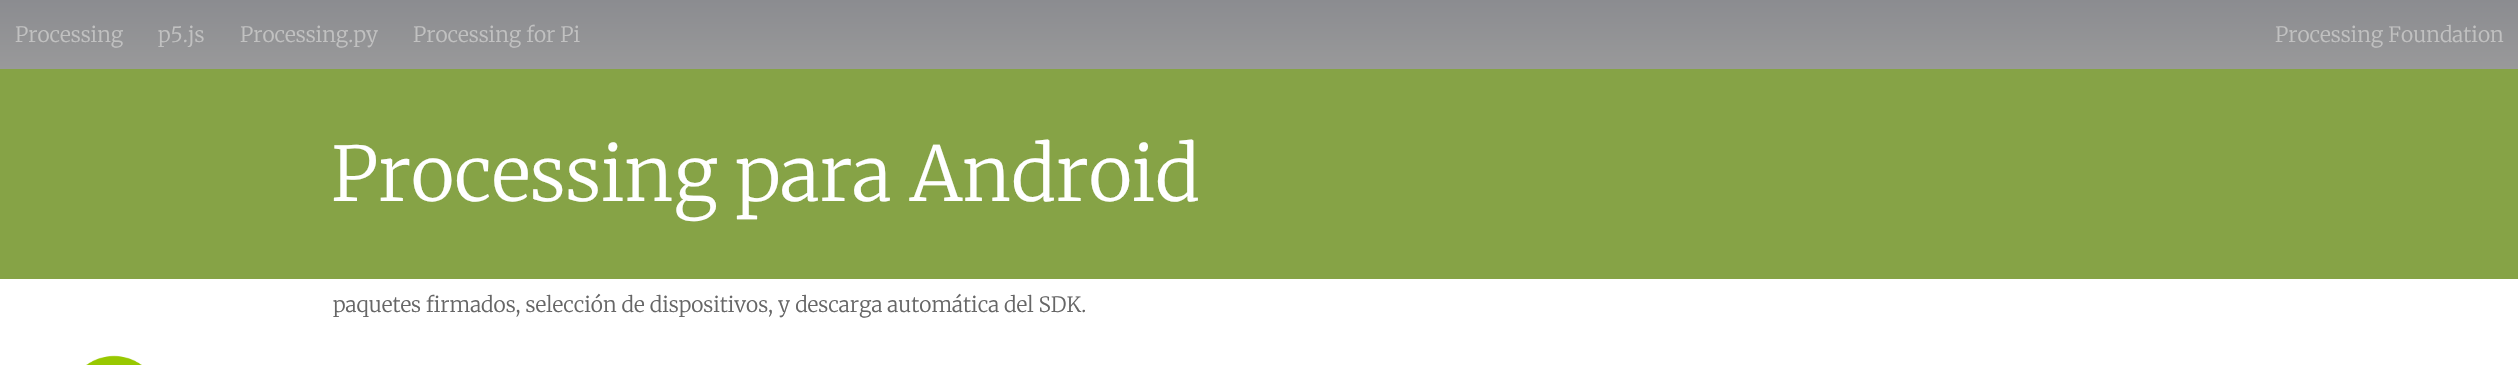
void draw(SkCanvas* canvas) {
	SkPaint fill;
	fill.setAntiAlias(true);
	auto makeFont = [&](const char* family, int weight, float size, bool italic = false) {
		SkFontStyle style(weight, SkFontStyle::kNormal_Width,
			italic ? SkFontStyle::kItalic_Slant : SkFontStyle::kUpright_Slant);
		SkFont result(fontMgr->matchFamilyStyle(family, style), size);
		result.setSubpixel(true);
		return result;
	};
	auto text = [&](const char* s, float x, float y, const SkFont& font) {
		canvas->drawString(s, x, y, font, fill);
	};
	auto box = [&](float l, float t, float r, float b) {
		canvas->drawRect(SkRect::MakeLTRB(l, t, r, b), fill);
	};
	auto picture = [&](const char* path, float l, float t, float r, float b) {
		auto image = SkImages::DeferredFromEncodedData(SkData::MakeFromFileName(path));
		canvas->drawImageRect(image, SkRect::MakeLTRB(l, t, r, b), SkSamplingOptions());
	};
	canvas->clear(0xFFFFFFFF);
	{
		const SkColor colors[] = {0xFF8B8C90, 0xFF99999A};
		const float stops[] = {0, 1};
		const SkPoint ends[] = {{1259, 0}, {1259, 69}};
		fill.setShader(SkGradientShader::MakeLinear(ends, colors, stops, 2, SkTileMode::kClamp));
		fill.setAlpha(255);
	}
	box(0, 0, 2518, 69);
	fill.setShader(nullptr);
	fill.setColor(0xFF86A346);
	box(0, 69, 2518, 279);
	picture("image0.png", 86, 355, 142, 365);
	auto font1 = makeFont("Merriweather", 300, 21);
	fill.setColor(0xFFC1C1C1);
	text("Processing", 15, 42, font1);
	text("p5.js", 158, 42, font1);
	text("Processing.py", 240, 42, font1);
	text("Processing for Pi", 413, 42, font1);
	text("Processing Foundation", 2275, 42, font1);
	auto font2 = makeFont("Merriweather", 300, 75);
	fill.setColor(0xFFFFFFFF);
	text("Processing para Android", 331, 201, font2);
	fill.setColor(0xFF666666);
	text("paquetes firmados, selección de dispositivos, y descarga automática del SDK.", 333, 312, font1);
}
